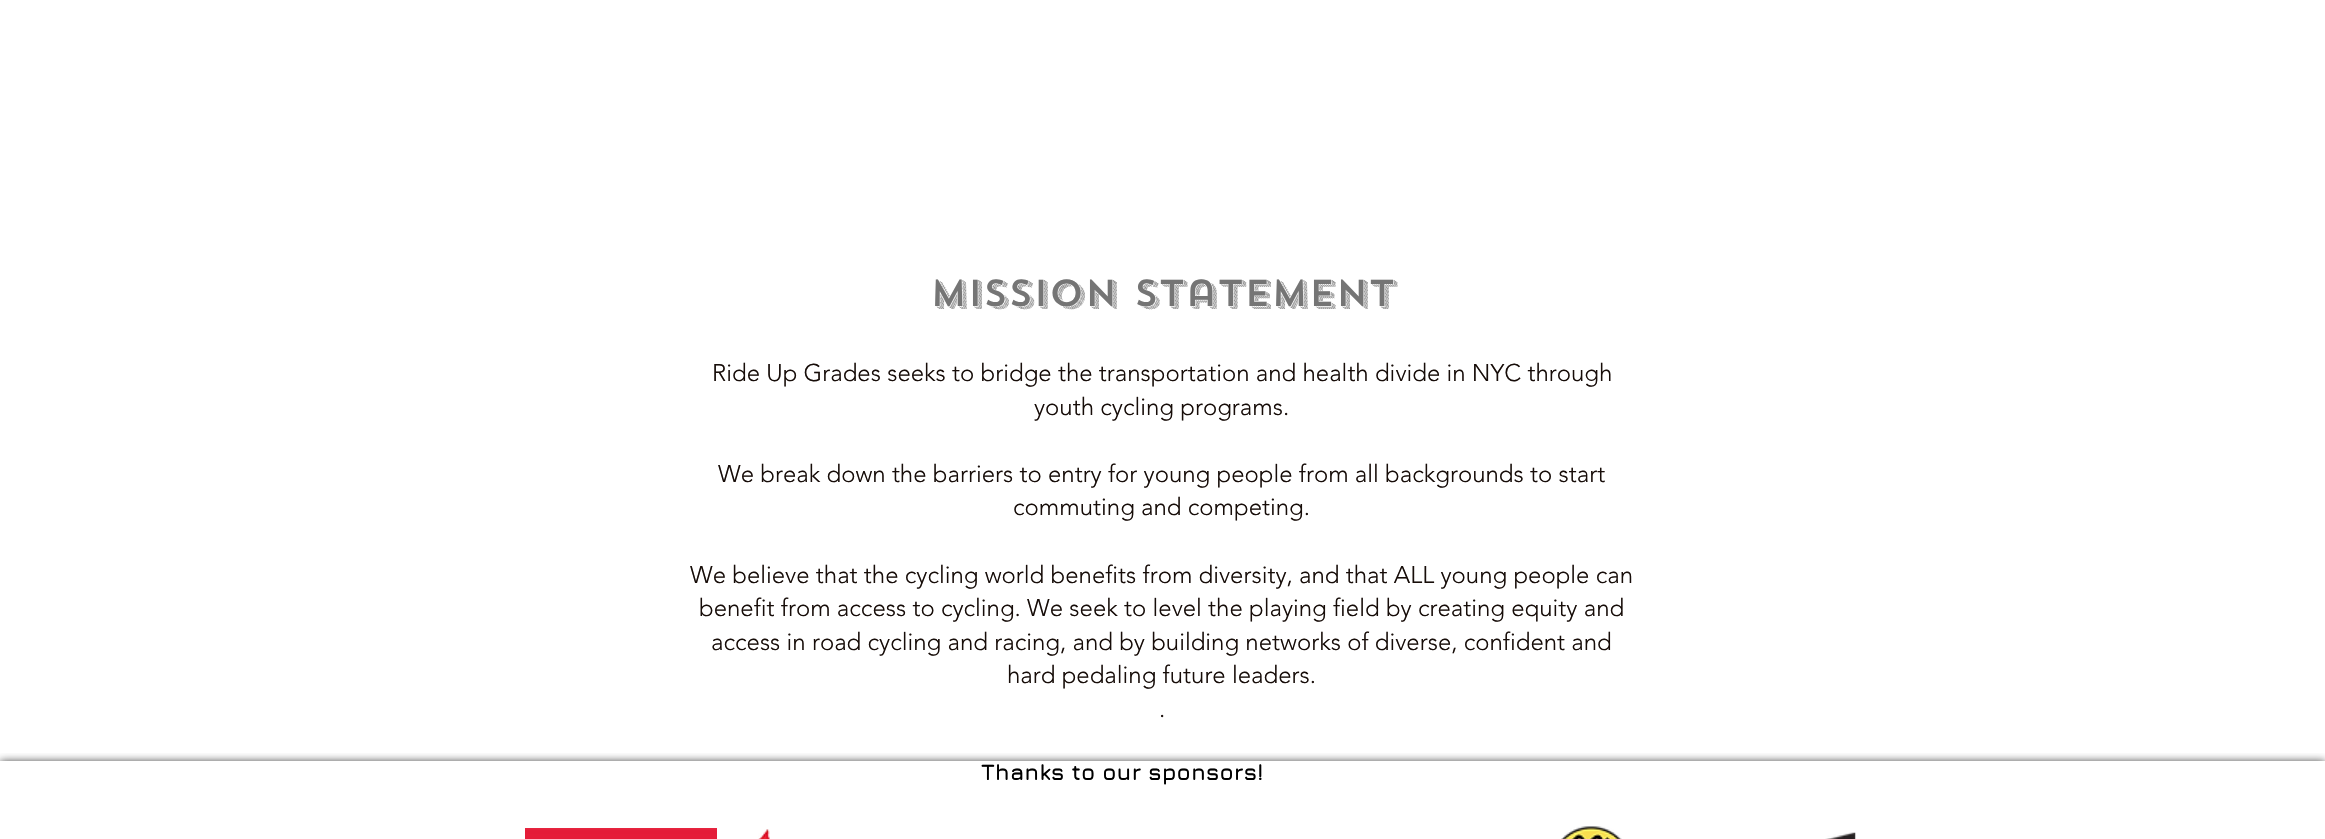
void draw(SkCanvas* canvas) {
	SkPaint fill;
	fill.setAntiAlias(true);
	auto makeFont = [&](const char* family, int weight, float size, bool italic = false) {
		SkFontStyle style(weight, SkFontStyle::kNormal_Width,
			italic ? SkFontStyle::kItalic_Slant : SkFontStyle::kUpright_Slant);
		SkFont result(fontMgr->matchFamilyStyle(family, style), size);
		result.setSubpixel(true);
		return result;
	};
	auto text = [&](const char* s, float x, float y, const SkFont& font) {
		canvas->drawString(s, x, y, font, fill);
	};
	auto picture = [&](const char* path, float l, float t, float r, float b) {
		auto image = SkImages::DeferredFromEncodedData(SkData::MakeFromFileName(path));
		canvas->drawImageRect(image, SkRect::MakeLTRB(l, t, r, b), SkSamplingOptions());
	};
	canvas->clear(0xFFFFFFFF);
	canvas->save();
	canvas->clipRect(SkRect::MakeLTRB(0, 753, 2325, 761));
	fill.setColor(0xB3000000);
	fill.setMaskFilter(SkMaskFilter::MakeBlur(kNormal_SkBlurStyle, 4));
	canvas->drawRect(SkRect::MakeLTRB(0, 761, 2325, 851), fill);
	fill.setMaskFilter(nullptr);
	canvas->restore();
	picture("image0.png", 525, 828, 717, 839);
	picture("image1.png", 758, 829, 770, 839);
	picture("image2.png", 1561, 826, 1622, 839);
	picture("image3.png", 1825, 832, 1856, 839);
	auto font1 = makeFont("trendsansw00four", 500, 37.5f);
	fill.setColor(0xFF757575);
	text("Mission Statement", 930, 306, font1);
	auto font2 = makeFont("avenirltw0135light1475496", 300, 24);
	fill.setColor(0xFF170D09);
	text("Ride Up Grades seeks to bridge the transportation and health divide in NYC through", 712, 381, font2);
	text("youth cycling programs.", 1034, 415, font2);
	text("We break down the barriers to entry for young people from all backgrounds to start", 718, 482, font2);
	text("commuting and competing.", 1013, 515, font2);
	text("We believe that the cycling world benefits from diversity, and that ALL young people can", 690, 583, font2);
	text("benefit from access to cycling. We seek to level the playing field by creating equity and", 699, 616, font2);
	text("access in road cycling and racing, and by building networks of diverse, confident and", 711, 650, font2);
	text("hard pedaling future leaders.", 1007, 683, font2);
	text(".", 1159, 717, font2);
	auto font3 = makeFont("Jura", 700, 22.5f);
	fill.setColor(0xFF000000);
	text("Thanks to our sponsors!", 981, 780, font3);
}
